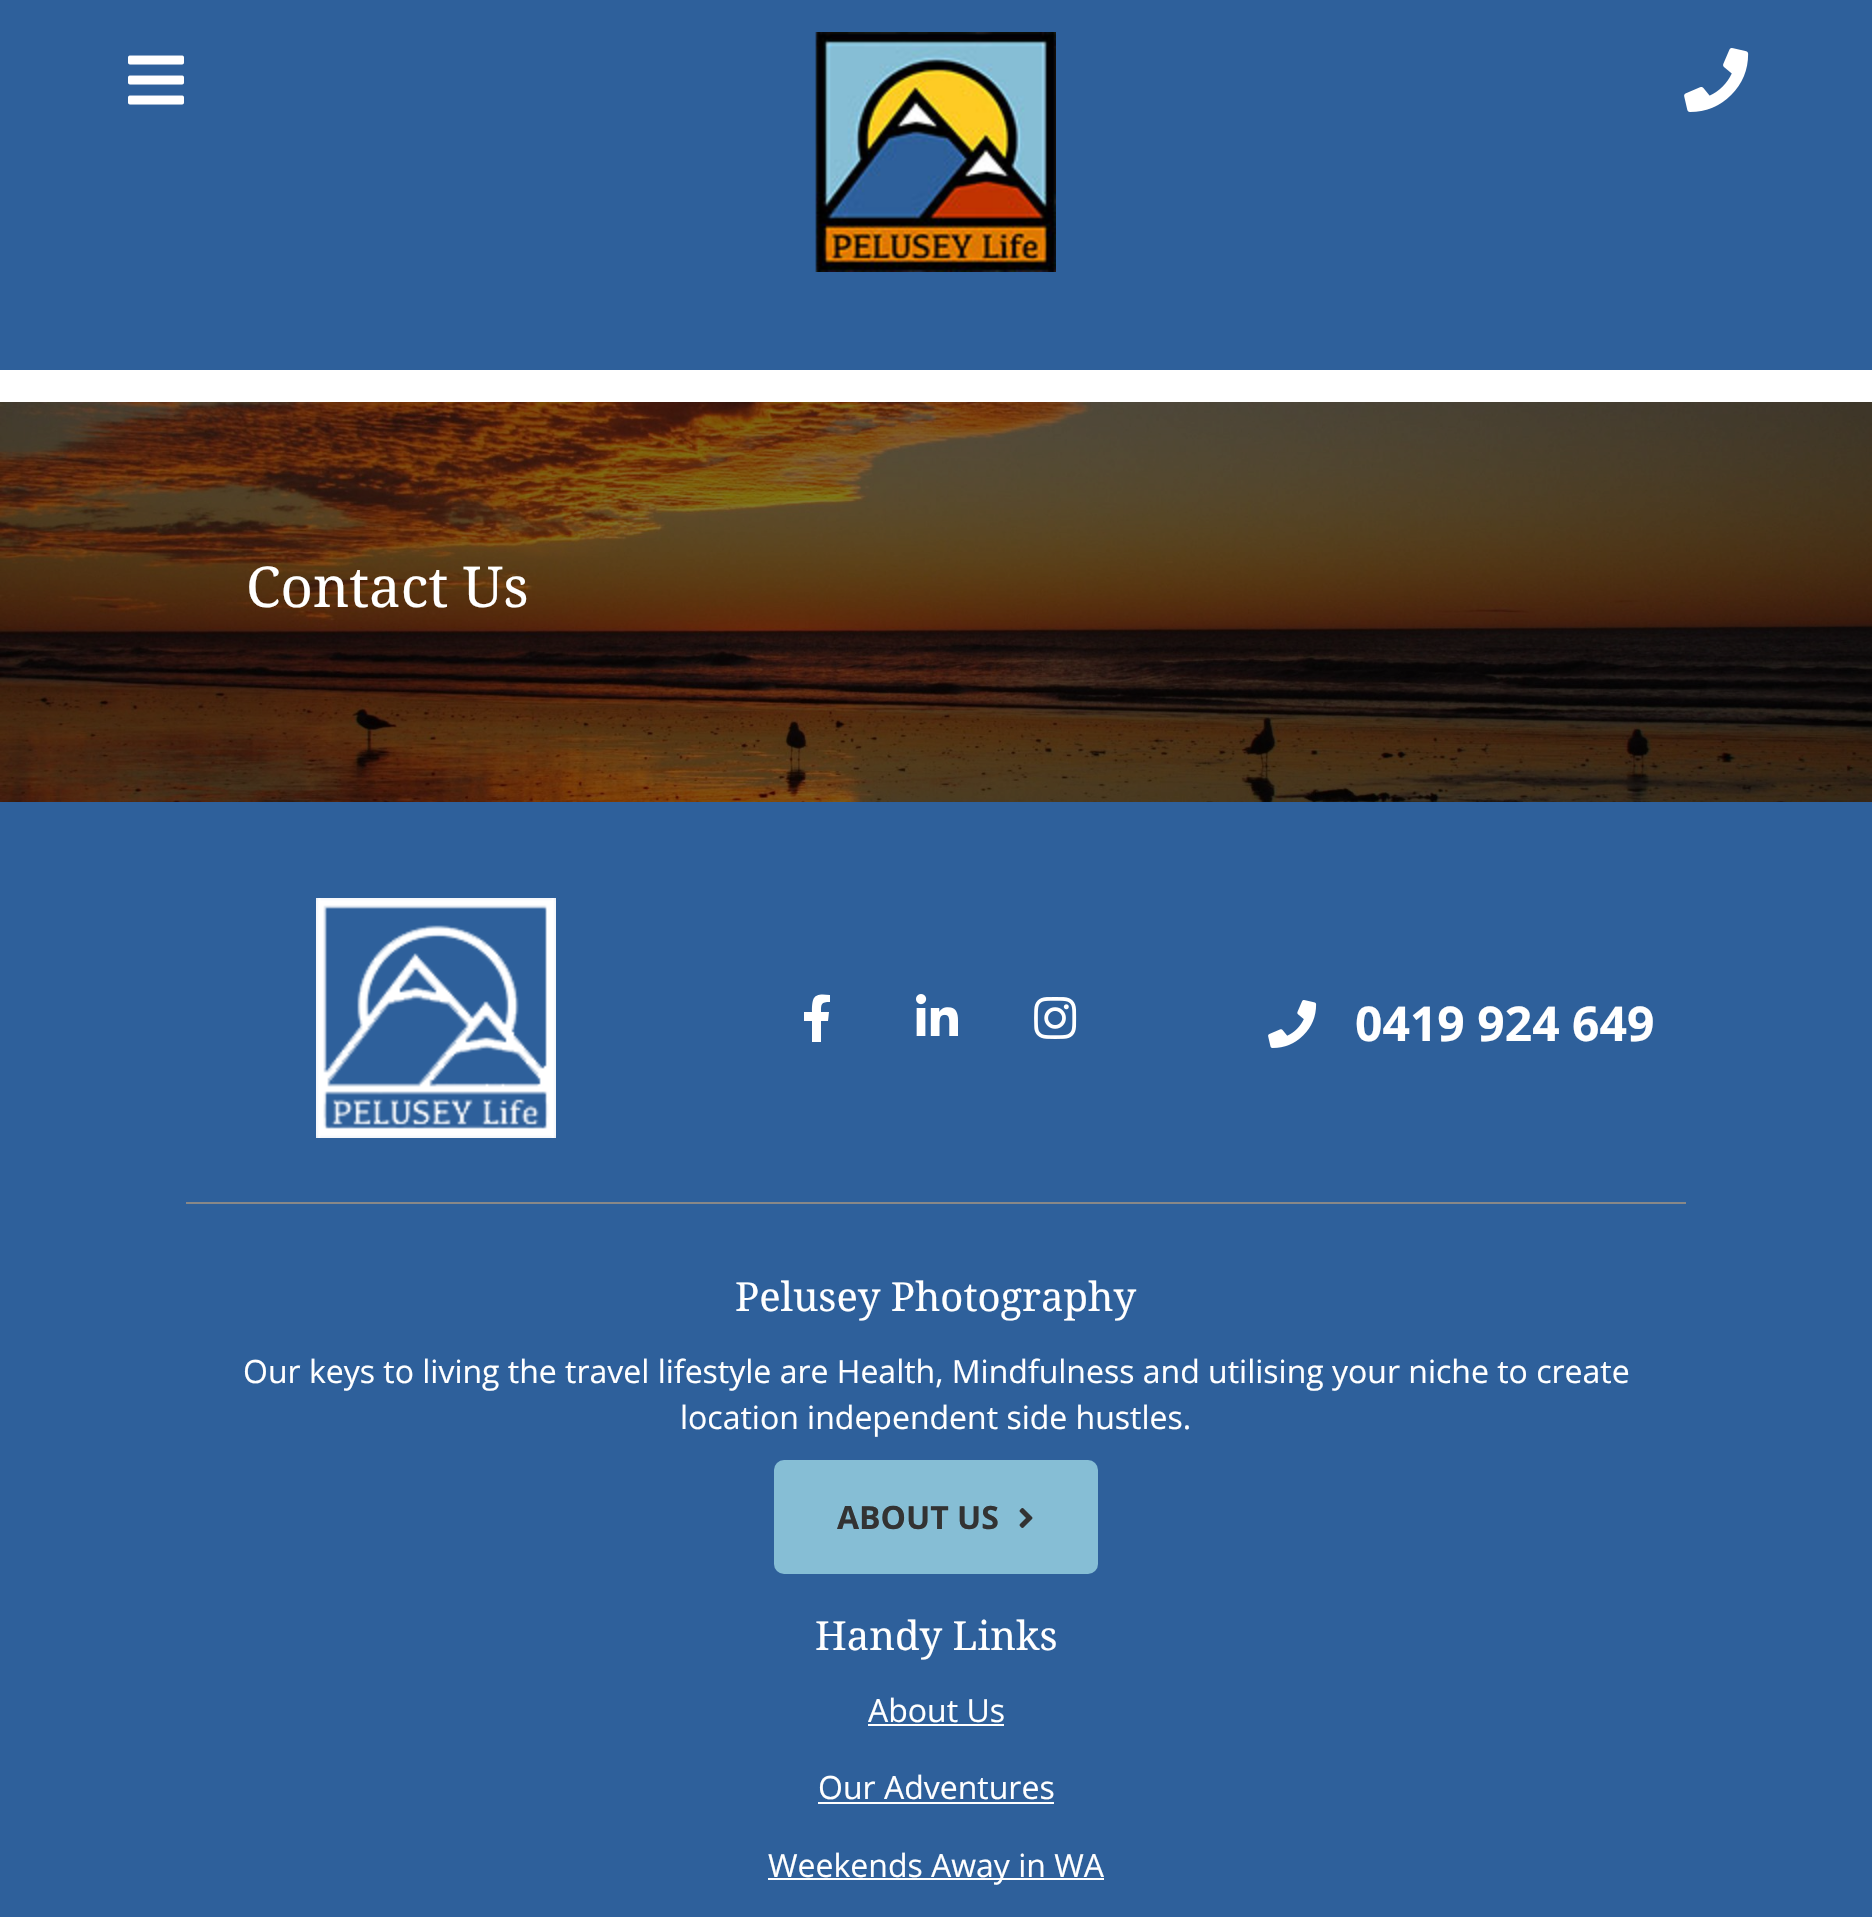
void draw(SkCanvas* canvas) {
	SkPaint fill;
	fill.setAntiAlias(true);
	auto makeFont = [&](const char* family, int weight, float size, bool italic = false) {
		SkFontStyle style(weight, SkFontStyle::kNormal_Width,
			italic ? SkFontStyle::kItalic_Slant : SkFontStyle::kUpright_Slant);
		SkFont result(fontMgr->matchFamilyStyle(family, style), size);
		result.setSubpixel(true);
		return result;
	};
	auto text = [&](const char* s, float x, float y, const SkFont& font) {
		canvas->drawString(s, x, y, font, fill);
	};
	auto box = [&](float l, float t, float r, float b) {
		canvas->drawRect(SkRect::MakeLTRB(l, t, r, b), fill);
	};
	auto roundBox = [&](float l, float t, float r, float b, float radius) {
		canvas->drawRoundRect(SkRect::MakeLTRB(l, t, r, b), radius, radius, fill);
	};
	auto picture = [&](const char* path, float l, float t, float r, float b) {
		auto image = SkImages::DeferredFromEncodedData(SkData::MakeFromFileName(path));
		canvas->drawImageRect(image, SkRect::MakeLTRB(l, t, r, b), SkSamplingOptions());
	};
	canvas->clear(0xFFFFFFFF);
	fill.setColor(0xFF2E609B);
	box(0, 0, 1872, 370);
	picture("image0.png", 128, 55, 184, 105);
	picture("image1.png", 815, 32, 1056, 272);
	picture("image2.png", 1684, 48, 1749, 112);
	picture("image3.png", 0, 402, 1872, 802);
	box(0, 802, 1872, 1917);
	fill.setColor(0xFF888888);
	box(186, 1202, 1686, 1204);
	picture("image4.png", 316, 898, 556, 1138);
	fill.setColor(0xFFFFFFFF);
	canvas->drawPath(SkPathBuilder().moveTo(828, 1021).lineTo(821, 1021).lineTo(821, 1042).lineTo(812, 1042).lineTo(812, 1021).lineTo(804, 1021).lineTo(804, 1012).lineTo(812, 1012).cubicTo(812, 996, 814, 993, 830, 995).lineTo(830, 1002).cubicTo(821, 1002, 821, 1004, 821, 1012).lineTo(829, 1012).close().detach(), fill);
	picture("image5.png", 916, 994, 958, 1036);
	picture("image6.png", 1034, 997, 1077, 1039);
	picture("image7.png", 1268, 1000, 1317, 1048);
	fill.setColor(0xFF86BED5);
	roundBox(774, 1460, 1098, 1574, 10);
	picture("image8.png", 1019, 1508, 1033, 1528);
	fill.setColor(0xFFFFFFFF);
	box(868, 1724, 1004, 1726);
	box(818, 1802, 1054, 1804);
	box(768, 1878, 1104, 1880);
	auto font1 = makeFont("Noto Serif", 400, 56.25f);
	text("Contact Us", 246, 607, font1);
	auto font2 = makeFont("Open Sans", 700, 48);
	text("0419 924 649", 1355, 1041, font2);
	auto font3 = makeFont("Noto Serif", 400, 40);
	text("Pelusey Photography", 735, 1311, font3);
	auto font4 = makeFont("Open Sans", 400, 32);
	text("Our keys to living the travel lifestyle are Health, Mindfulness and utilising your niche to create", 243, 1383, font4);
	text("location independent side hustles.", 680, 1429, font4);
	auto font5 = makeFont("Open Sans", 700, 32);
	fill.setColor(0xFF333333);
	text("ABOUT US", 837, 1529, font5);
	fill.setColor(0xFFFFFFFF);
	text("Handy Links", 815, 1650, font3);
	text("About Us", 868, 1722, font4);
	text("Our Adventures", 818, 1799, font4);
	text("Weekends Away in WA", 768, 1877, font4);
}
